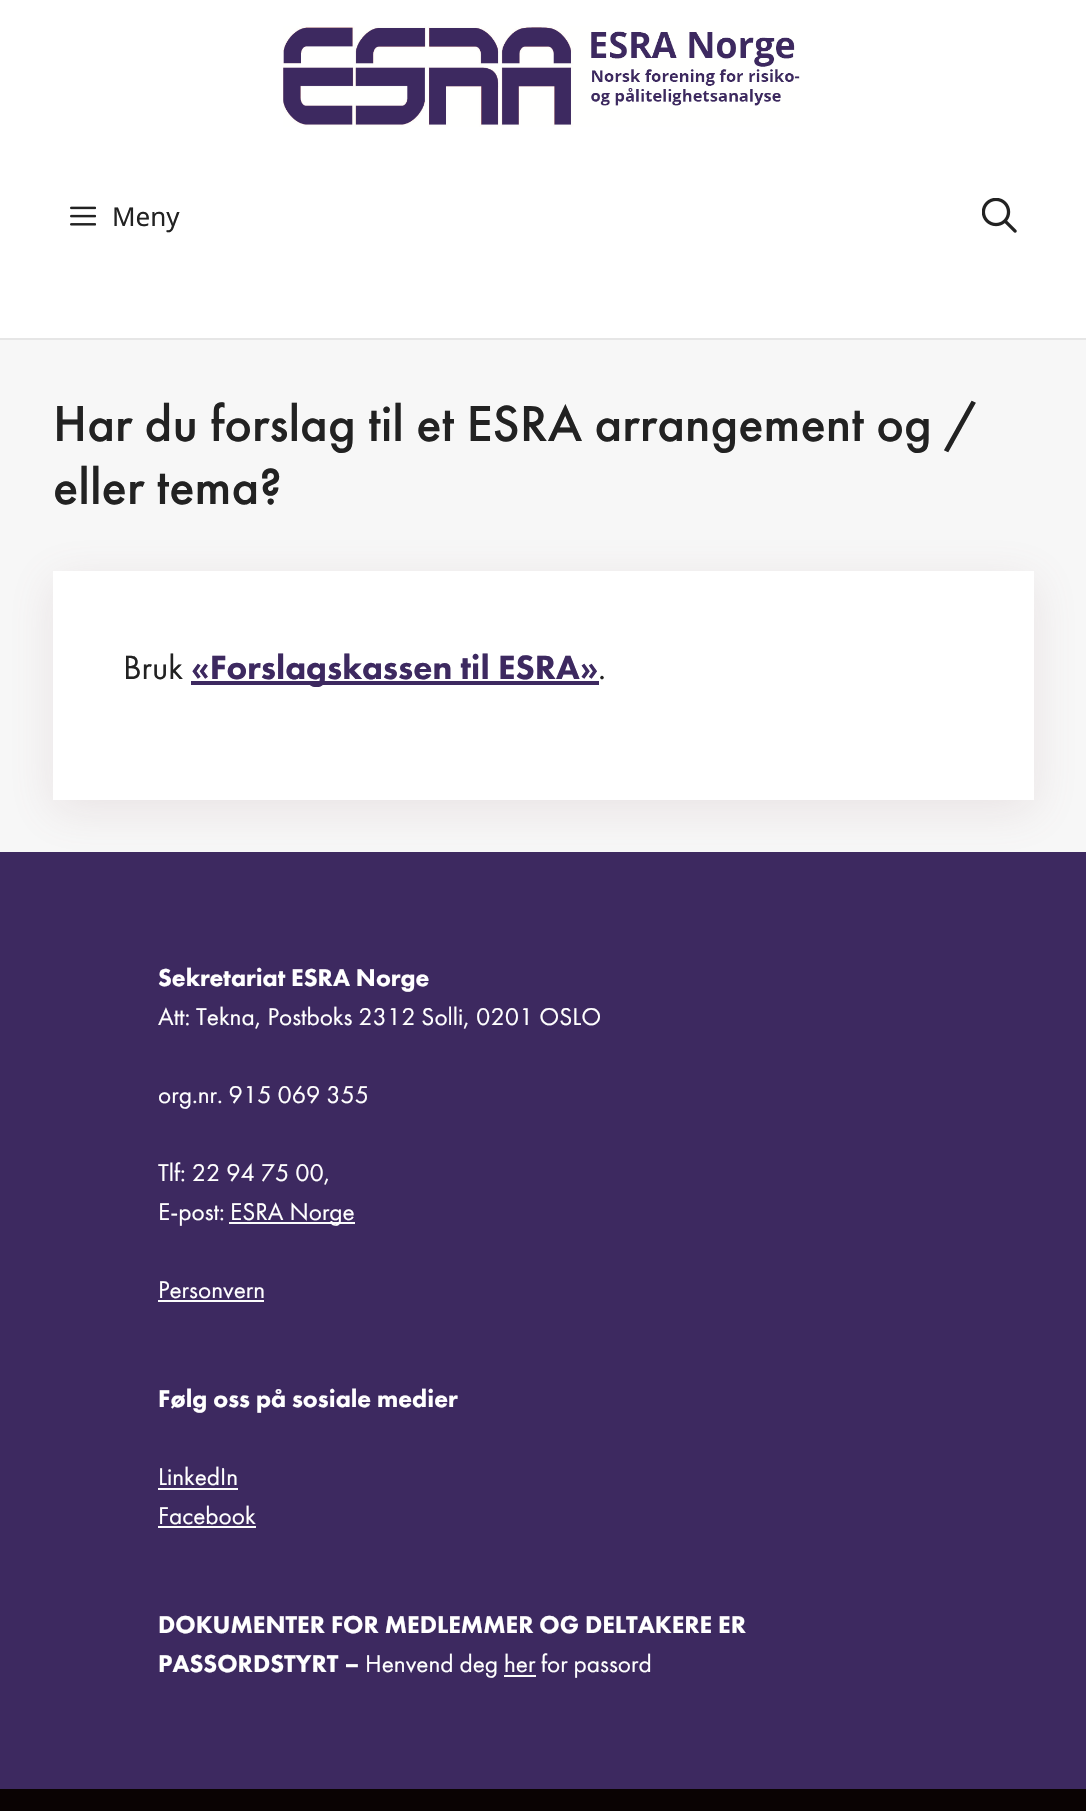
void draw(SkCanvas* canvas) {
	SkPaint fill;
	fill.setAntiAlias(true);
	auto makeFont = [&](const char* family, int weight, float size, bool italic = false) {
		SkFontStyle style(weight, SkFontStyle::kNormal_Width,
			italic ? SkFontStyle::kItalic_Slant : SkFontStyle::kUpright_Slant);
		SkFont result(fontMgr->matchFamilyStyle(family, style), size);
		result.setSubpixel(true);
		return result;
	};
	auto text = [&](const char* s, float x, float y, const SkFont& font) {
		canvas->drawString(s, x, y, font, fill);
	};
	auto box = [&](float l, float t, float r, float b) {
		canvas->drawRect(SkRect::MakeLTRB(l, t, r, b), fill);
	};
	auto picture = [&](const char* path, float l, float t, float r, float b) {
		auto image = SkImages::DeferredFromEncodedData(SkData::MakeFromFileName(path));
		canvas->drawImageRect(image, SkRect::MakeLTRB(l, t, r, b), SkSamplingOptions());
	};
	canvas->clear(0xFFF7F7F7);
	fill.setColor(0xFFFFFFFF);
	box(0, 0, 1086, 338);
	fill.setColor(0xFFE6E6E6);
	box(0, 338, 1086, 340);
	picture("image0.png", 283, 26, 800, 127);
	picture("image1.png", 70, 206, 96, 226);
	picture("image2.png", 982, 198, 1017, 233);
	fill.setColor(0x26916A70);
	fill.setMaskFilter(SkMaskFilter::MakeBlur(kNormal_SkBlurStyle, 21));
	canvas->drawRect(SkRect::MakeLTRB(53, 581, 1034, 810), fill);
	fill.setMaskFilter(nullptr);
	fill.setColor(0xFFFFFFFF);
	box(53, 571, 1034, 800);
	fill.setColor(0xFF3D2960);
	box(191, 681, 599, 685);
	box(0, 852, 1086, 1789);
	fill.setColor(0xFFFCFCFC);
	box(229, 1222, 355, 1224);
	box(158, 1300, 264, 1302);
	box(158, 1488, 238, 1490);
	box(158, 1526, 256, 1528);
	box(504, 1675, 536, 1677);
	fill.setColor(0xFF0A0303);
	box(0, 1789, 1086, 1811);
	auto font1 = makeFont("Noto Sans", 400, 26);
	fill.setColor(0xFF222222);
	text("Meny", 112, 226, font1);
	auto font2 = makeFont("Futura PT", 500, 52.5f);
	text("Har du forslag til et ESRA arrangement og /", 53, 441, font2);
	text("eller tema?", 53, 504, font2);
	auto font3 = makeFont("Futura PT", 400, 35);
	text("Bruk", 123, 679, font3);
	auto font4 = makeFont("Futura PT", 900, 35);
	fill.setColor(0xFF3D2960);
	text("«Forslagskassen til ESRA»", 191, 679, font4);
	fill.setColor(0xFF222222);
	text(".", 598, 679, font3);
	auto font5 = makeFont("Futura PT", 900, 25.2f);
	fill.setColor(0xFFFFFFFF);
	text("Sekretariat ESRA Norge", 158, 986, font5);
	auto font6 = makeFont("Futura PT", 400, 25.2f);
	text("Att: Tekna, Postboks 2312 Solli, 0201 OSLO", 158, 1025, font6);
	text("org.nr. 915 069 355", 158, 1103, font6);
	text("Tlf: 22 94 75 00,", 158, 1181, font6);
	text("E-post:", 158, 1220, font6);
	text("ESRA Norge", 230, 1220, font6);
	text("Personvern", 158, 1298, font6);
	text("Følg oss på sosiale medier", 158, 1407, font5);
	text("LinkedIn", 158, 1485, font6);
	text("Facebook", 158, 1524, font6);
	text("DOKUMENTER FOR MEDLEMMER OG DELTAKERE ER", 158, 1633, font5);
	text("PASSORDSTYRT –", 158, 1672, font5);
	text("Henvend deg", 365, 1672, font6);
	text("her", 504, 1672, font6);
	text("for passord", 541, 1672, font6);
}
